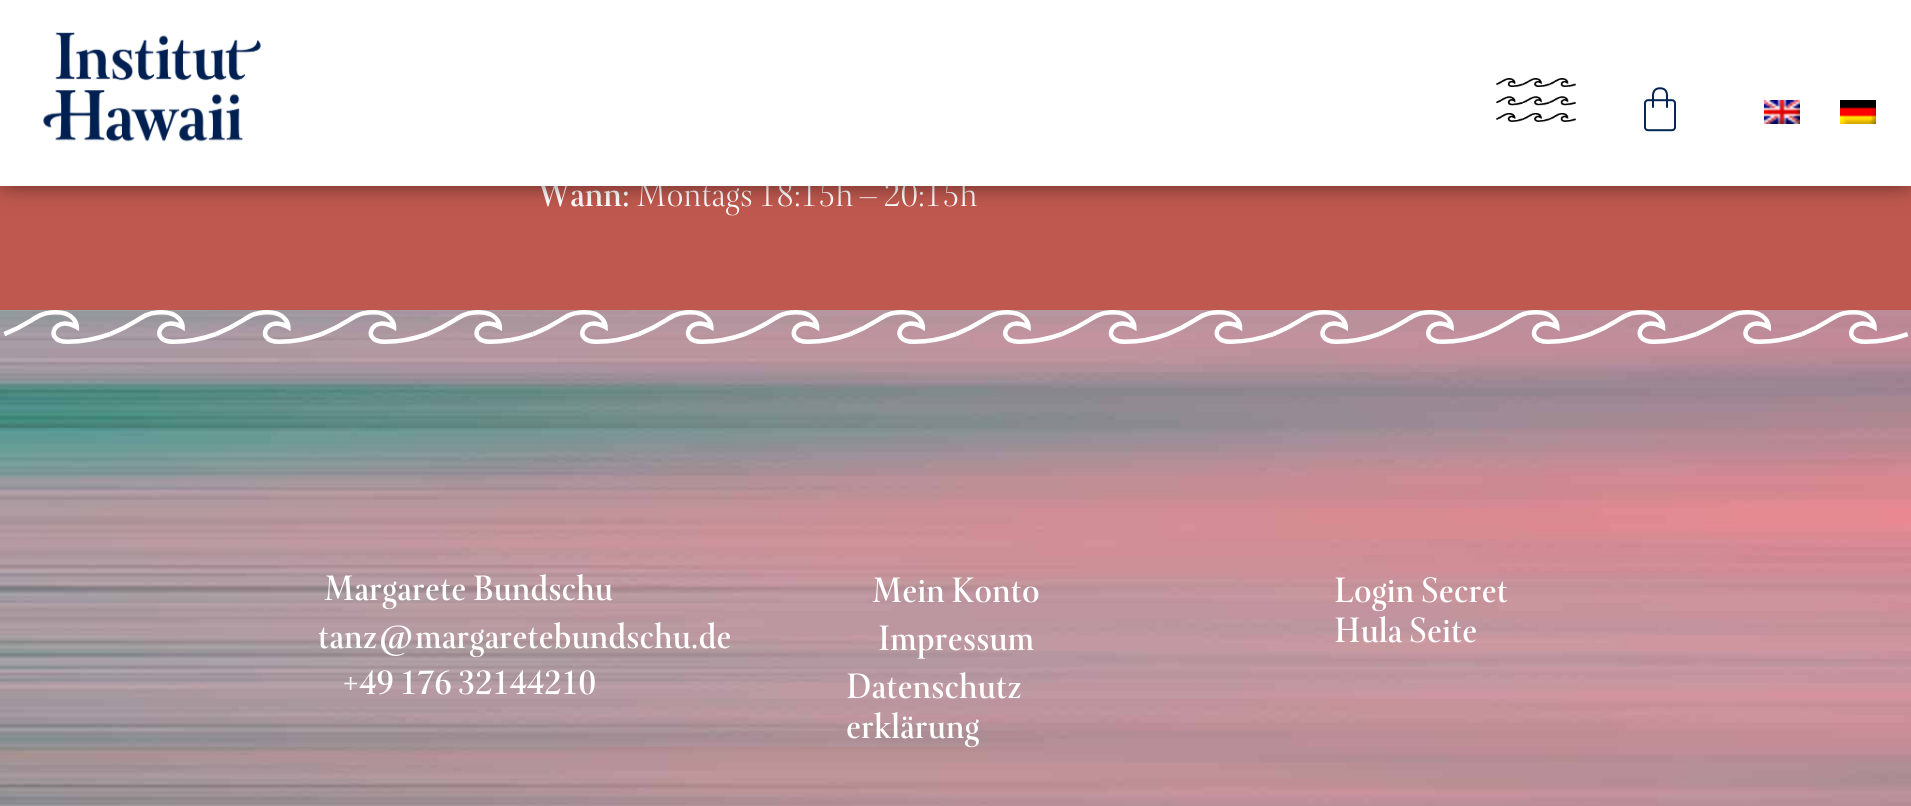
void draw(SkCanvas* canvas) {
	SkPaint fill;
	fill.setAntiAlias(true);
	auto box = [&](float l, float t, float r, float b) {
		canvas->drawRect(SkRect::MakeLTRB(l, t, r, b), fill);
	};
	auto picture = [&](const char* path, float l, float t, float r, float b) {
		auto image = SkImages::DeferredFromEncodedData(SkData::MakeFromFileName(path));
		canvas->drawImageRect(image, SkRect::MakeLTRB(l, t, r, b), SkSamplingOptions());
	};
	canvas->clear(0xFFBF584E);
	picture("image5.png", 541, 186, 628, 207);
	picture("image6.png", 637, 186, 977, 216);
	fill.setColor(0x80000000);
	fill.setMaskFilter(SkMaskFilter::MakeBlur(kNormal_SkBlurStyle, 10));
	canvas->drawRect(SkRect::MakeLTRB(0, 0, 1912, 186), fill);
	fill.setMaskFilter(nullptr);
	fill.setColor(0xFFFFFFFF);
	box(0, 0, 1911, 186);
	picture("image0.png", 43, 32, 261, 142);
	picture("image1.png", 1496, 78, 1576, 122);
	picture("image2.png", 1644, 87, 1676, 132);
	picture("image3.png", 1764, 100, 1800, 124);
	picture("image4.png", 1840, 100, 1876, 124);
	picture("image7.png", 0, 310, 1911, 806);
	picture("image8.png", 3, 310, 1909, 344);
	picture("image9.png", 324, 574, 613, 610);
	picture("image10.png", 318, 622, 730, 658);
	picture("image11.png", 344, 669, 595, 695);
	picture("image12.png", 872, 577, 1039, 603);
	picture("image13.png", 879, 625, 1034, 659);
	picture("image14.png", 847, 672, 1021, 699);
	picture("image15.png", 847, 712, 979, 748);
	picture("image16.png", 1335, 577, 1508, 612);
	picture("image17.png", 1335, 616, 1476, 643);
}
